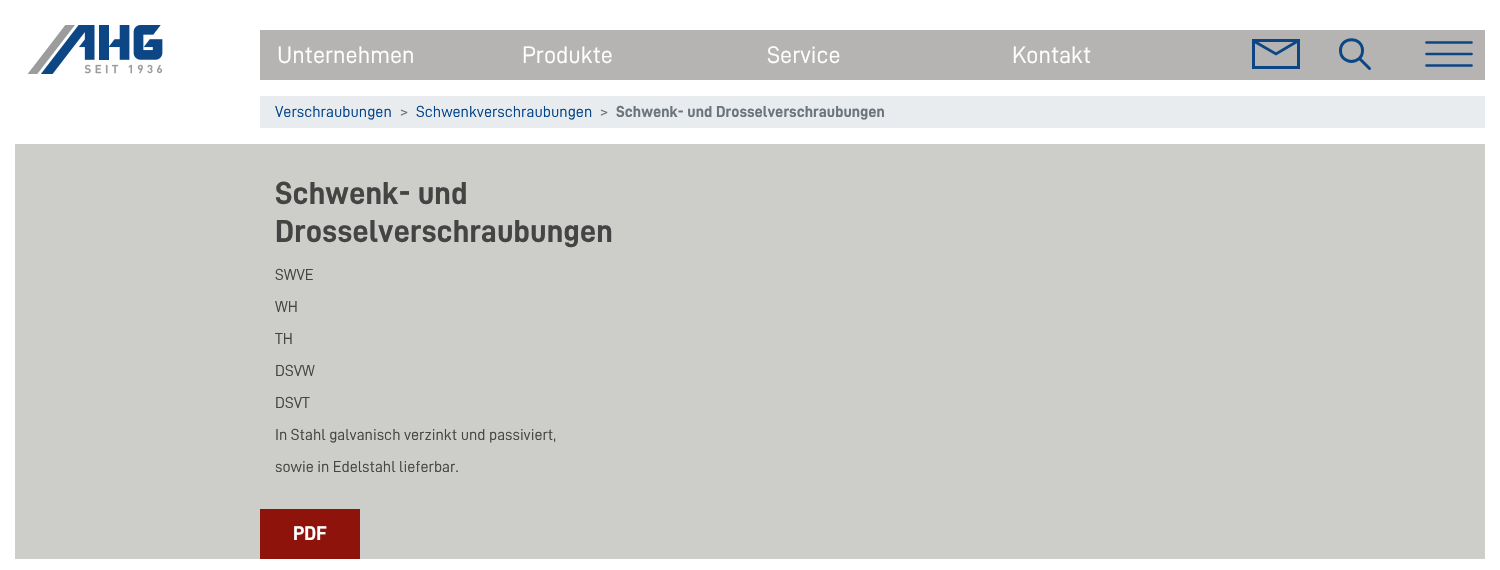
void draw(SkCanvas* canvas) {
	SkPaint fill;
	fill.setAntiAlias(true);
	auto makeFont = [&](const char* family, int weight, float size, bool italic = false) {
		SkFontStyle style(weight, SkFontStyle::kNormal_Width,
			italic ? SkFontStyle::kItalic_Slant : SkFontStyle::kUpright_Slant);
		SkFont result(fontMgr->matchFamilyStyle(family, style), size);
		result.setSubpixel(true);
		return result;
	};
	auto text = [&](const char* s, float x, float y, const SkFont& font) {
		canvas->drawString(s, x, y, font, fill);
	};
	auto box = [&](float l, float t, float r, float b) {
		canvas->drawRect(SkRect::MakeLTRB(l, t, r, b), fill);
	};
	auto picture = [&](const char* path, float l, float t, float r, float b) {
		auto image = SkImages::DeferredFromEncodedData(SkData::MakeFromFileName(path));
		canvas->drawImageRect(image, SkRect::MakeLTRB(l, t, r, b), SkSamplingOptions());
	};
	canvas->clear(0xFFFFFFFF);
	picture("image0.png", 27, 25, 163, 74);
	fill.setColor(0xFFB5B4B3);
	box(260, 30, 1485, 80);
	fill.setStyle(SkPaint::kStroke_Style);
	fill.setStrokeWidth(3);
	fill.setColor(0xFF0C4684);
	canvas->drawRect(SkRect::MakeLTRB(1253.5f, 40.5f, 1298.5f, 67.5f), fill);
	fill.setStrokeWidth(2.8f);
	fill.setStrokeCap(SkPaint::kRound_Cap);
	canvas->drawPath(SkPathBuilder().moveTo(1254.5f, 41.5f).lineTo(1276, 54).lineTo(1297, 41.5f).detach(), fill);
	fill.setStrokeWidth(3);
	fill.setColor(0xFF0C4685);
	canvas->drawPath(SkPathBuilder().moveTo(1362.5f, 50.5f).cubicTo(1362.5f, 36, 1340.5f, 36, 1340.5f, 50.5f).cubicTo(1340.5f, 65, 1362.5f, 65, 1362.5f, 50.5f).close().moveTo(1360.5f, 59.5f).lineTo(1369.5f, 68.5f).detach(), fill);
	fill.setStrokeWidth(2.7f);
	canvas->drawPath(SkPathBuilder().moveTo(1426.5f, 42.5f).lineTo(1471.5f, 42.5f).moveTo(1426.5f, 54).lineTo(1471.5f, 54).moveTo(1426.5f, 65.5f).lineTo(1471.5f, 65.5f).detach(), fill);
	fill.setStyle(SkPaint::kFill_Style);
	fill.setColor(0xFFE9ECEF);
	box(260, 96, 1485, 128);
	fill.setColor(0xFFCDCEC9);
	box(15, 144, 1485, 559);
	fill.setColor(0xFF8E140B);
	box(260, 509, 360, 559);
	auto font1 = makeFont("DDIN", 400, 24);
	fill.setColor(0xFFFFFFFF);
	text("Unternehmen", 277, 63, font1);
	text("Produkte", 522, 63, font1);
	text("Service", 767, 63, font1);
	text("Kontakt", 1012, 63, font1);
	auto font2 = makeFont("DDIN", 400, 16);
	fill.setColor(0xFF014489);
	text("Verschraubungen", 275, 117, font2);
	fill.setColor(0xFF6C757D);
	text(">", 400, 117, font2);
	fill.setColor(0xFF014489);
	text("Schwenkverschraubungen", 416, 117, font2);
	fill.setColor(0xFF6C757D);
	text(">", 600, 117, font2);
	auto font3 = makeFont("DDIN", 700, 16);
	text("Schwenk- und Drosselverschraubungen", 616, 117, font3);
	auto font4 = makeFont("DDIN", 700, 32);
	fill.setColor(0xFF444444);
	text("Schwenk- und", 275, 204, font4);
	text("Drosselverschraubungen", 275, 242, font4);
	text("SWVE", 275, 280, font2);
	text("WH", 275, 312, font2);
	text("TH", 275, 344, font2);
	text("DSVW", 275, 376, font2);
	text("DSVT", 275, 408, font2);
	text("In Stahl galvanisch verzinkt und passiviert,", 275, 440, font2);
	text("sowie in Edelstahl lieferbar.", 275, 472, font2);
	auto font5 = makeFont("DDIN", 700, 20);
	fill.setColor(0xFFFFFFFF);
	text("PDF", 293, 540, font5);
}
